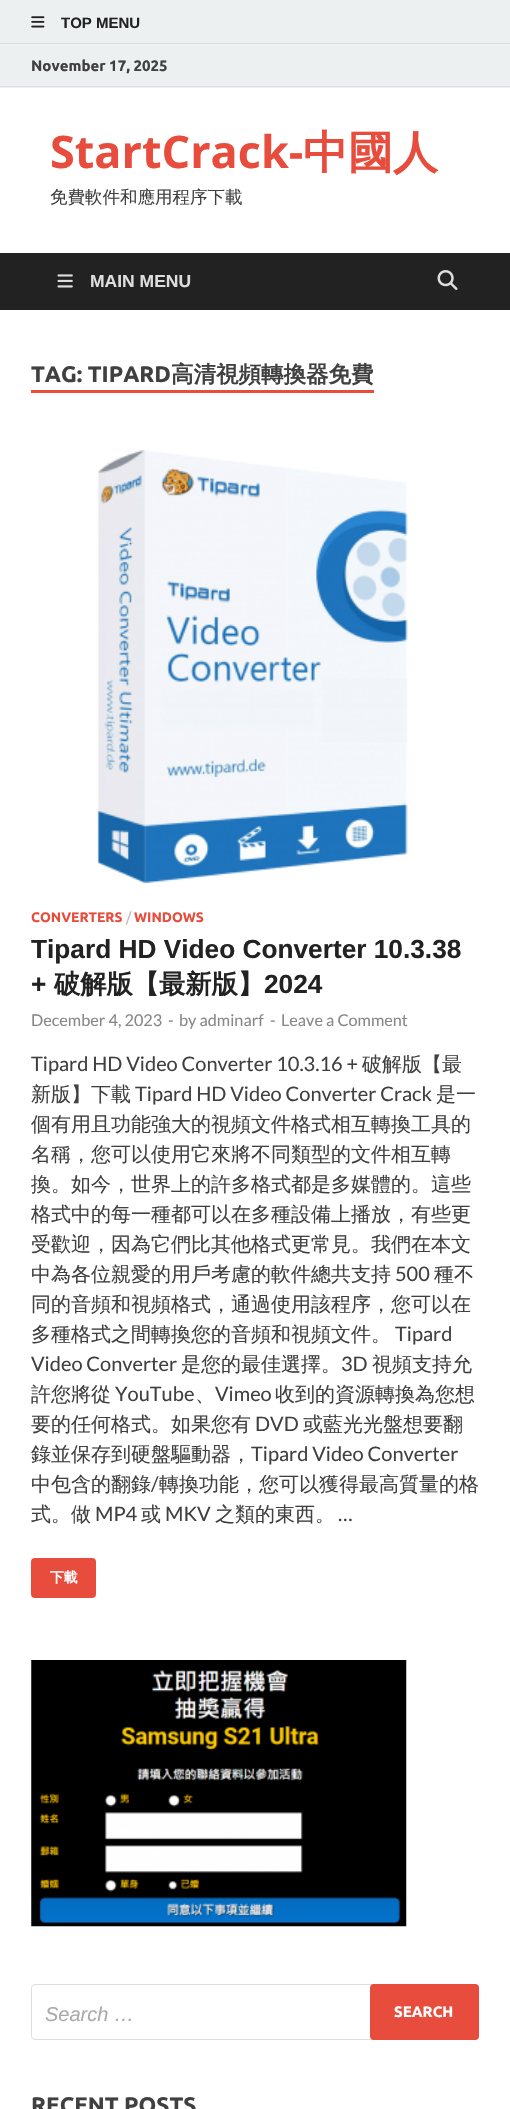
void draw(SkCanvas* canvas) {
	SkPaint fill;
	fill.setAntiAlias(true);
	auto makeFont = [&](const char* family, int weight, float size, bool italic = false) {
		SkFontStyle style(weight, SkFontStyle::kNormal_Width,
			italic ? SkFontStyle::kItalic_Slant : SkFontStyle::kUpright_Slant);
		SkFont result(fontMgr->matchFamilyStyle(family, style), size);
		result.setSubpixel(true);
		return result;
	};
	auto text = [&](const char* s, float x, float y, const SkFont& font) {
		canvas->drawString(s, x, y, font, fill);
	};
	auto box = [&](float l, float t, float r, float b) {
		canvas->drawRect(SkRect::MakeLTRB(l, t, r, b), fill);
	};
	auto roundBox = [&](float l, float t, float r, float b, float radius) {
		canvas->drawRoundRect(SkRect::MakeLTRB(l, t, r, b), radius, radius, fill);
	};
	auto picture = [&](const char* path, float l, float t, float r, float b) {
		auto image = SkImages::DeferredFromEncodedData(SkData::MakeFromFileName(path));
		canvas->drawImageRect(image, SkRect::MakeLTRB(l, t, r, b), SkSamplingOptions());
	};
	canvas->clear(0xFFFFFFFF);
	fill.setColor(0xFFECF0F1);
	box(0, 0, 510, 43);
	fill.setColor(0xFFDDDDDD);
	box(0, 43, 510, 44);
	picture("image0.png", 31, 16, 45, 28);
	fill.setColor(0xFFECF0F1);
	box(0, 44, 510, 88);
	fill.setColor(0xFFDDDDDD);
	box(0, 86, 510, 87);
	fill.setColor(0xFF222222);
	box(0, 253, 510, 310);
	picture("image1.png", 57, 274, 73, 288);
	picture("image2.png", 437, 270, 458, 290);
	fill.setColor(0xFFE74C3C);
	box(31, 390, 374, 393);
	picture("image3.png", 97, 450, 408, 884);
	roundBox(31, 1558, 96, 1598, 4);
	picture("image4.png", 31, 1660, 407, 1927);
	fill.setStyle(SkPaint::kStroke_Style);
	fill.setStrokeWidth(1);
	fill.setColor(0xFFDDDDDD);
	canvas->drawRoundRect(SkRect::MakeLTRB(31.5f, 1984.5f, 478.5f, 2039.5f), 3.5f, 3.5f, fill);
	fill.setStyle(SkPaint::kFill_Style);
	fill.setColor(0xFFE74C3C);
	roundBox(370, 1984, 479, 2040, 4);
	auto font1 = makeFont("Liberation Sans", 700, 15);
	fill.setColor(0xFF222222);
	text("TOP MENU", 61, 28, font1);
	auto font2 = makeFont("Ubuntu", 700, 15);
	fill.setColor(0xFF404040);
	text("November 17, 2025", 31, 71, font2);
	auto font3 = makeFont("Open Sans", 700, 45);
	fill.setColor(0xFFE74C3C);
	text("StartCrack-", 50, 168, font3);
	auto font4 = makeFont("WenQuanYi Zen Hei", 700, 45);
	text("中國人", 303, 168, font4);
	auto font5 = makeFont("WenQuanYi Zen Hei", 500, 17.5f);
	fill.setColor(0xFF404040);
	text("免費軟件和應用程序下載", 50, 203, font5);
	auto font6 = makeFont("Liberation Sans", 700, 17.5f);
	fill.setColor(0xFFDDDDDD);
	text("MAIN MENU", 90, 287, font6);
	auto font7 = makeFont("Ubuntu", 700, 22.5f);
	fill.setColor(0xFF404040);
	text("TAG: TIPARD", 31, 382, font7);
	auto font8 = makeFont("WenQuanYi Zen Hei", 700, 22.5f);
	text("高清視頻轉換器免費", 171, 382, font8);
	auto font9 = makeFont("Ubuntu", 700, 13.75f);
	fill.setColor(0xFFE74C3C);
	text("CONVERTERS", 31, 922, font9);
	auto font10 = makeFont("Ubuntu", 400, 13.75f);
	fill.setColor(0xFFBBBBBB);
	text("/", 126, 922, font10);
	fill.setColor(0xFFE74C3C);
	text("WINDOWS", 134, 922, font9);
	auto font11 = makeFont("Liberation Sans", 700, 26.25f);
	fill.setColor(0xFF222222);
	text("Tipard HD Video Converter 10.3.38", 31, 958, font11);
	text("+", 31, 993, font11);
	auto font12 = makeFont("WenQuanYi Zen Hei", 700, 26.25f);
	text("破解版【最新版】", 54, 993, font12);
	text("2024", 264, 993, font11);
	auto font13 = makeFont("Lato", 400, 16.25f);
	fill.setColor(0xFF888888);
	text("December 4, 2023", 31, 1026, font13);
	text("-", 168, 1026, font13);
	text("by adminarf", 179, 1026, font13);
	text("-", 270, 1026, font13);
	text("Leave a Comment", 281, 1026, font13);
	auto font14 = makeFont("Lato", 400, 20);
	fill.setColor(0xFF404040);
	text("Tipard HD Video Converter 10.3.16 +", 31, 1071, font14);
	auto font15 = makeFont("WenQuanYi Zen Hei", 500, 20);
	text("破解版【最", 362, 1071, font15);
	text("新版】下載", 31, 1101, font15);
	text("Tipard HD Video Converter Crack", 135, 1101, font14);
	text("是一", 436, 1101, font15);
	text("個有用且功能強大的視頻文件格式相互轉換工具的", 31, 1131, font15);
	text("名稱，您可以使用它來將不同類型的文件相互轉", 31, 1161, font15);
	text("換。如今，世界上的許多格式都是多媒體的。這些", 31, 1191, font15);
	text("格式中的每一種都可以在多種設備上播放，有些更", 31, 1221, font15);
	text("受歡迎，因為它們比其他格式更常見。我們在本文", 31, 1251, font15);
	text("中為各位親愛的用戶考慮的軟件總共支持", 31, 1281, font15);
	text("500", 395, 1281, font14);
	text("種不", 434, 1281, font15);
	text("同的音頻和視頻格式，通過使用該程序，您可以在", 31, 1311, font15);
	text("多種格式之間轉換您的音頻和視頻文件。", 31, 1341, font15);
	text("Tipard", 395, 1341, font14);
	text("Video Converter", 31, 1371, font14);
	text("是您的最佳選擇。", 181, 1371, font15);
	text("3D", 341, 1371, font14);
	text("視頻支持允", 372, 1371, font15);
	text("許您將從", 31, 1401, font15);
	text("YouTube", 115, 1401, font14);
	text("、", 195, 1401, font15);
	text("Vimeo", 215, 1401, font14);
	text("收到的資源轉換為您想", 275, 1401, font15);
	text("要的任何格式。如果您有", 31, 1431, font15);
	text("DVD", 255, 1431, font14);
	text("或藍光光盤想要翻", 303, 1431, font15);
	text("錄並保存到硬盤驅動器，", 31, 1461, font15);
	text("Tipard Video Converter", 251, 1461, font14);
	text("中包含的翻錄", 31, 1491, font15);
	text("/", 151, 1491, font14);
	text("轉換功能，您可以獲得最高質量的格", 159, 1491, font15);
	text("式。做", 31, 1521, font15);
	text("MP4", 95, 1521, font14);
	text("或", 141, 1521, font15);
	text("MKV", 165, 1521, font14);
	text("之類的東西。", 215, 1521, font15);
	text("…", 338, 1521, font14);
	auto font16 = makeFont("WenQuanYi Zen Hei", 700, 13.75f);
	fill.setColor(0xFFFFFFFF);
	text("下載", 50, 1582, font16);
	auto font17 = makeFont("Liberation Sans", 400, 20, true);
	fill.setColor(0xFFAAAAAA);
	text("Search …", 45, 2021, font17);
	fill.setColor(0xFFFFFFFF);
	text("SEARCH", 394, 2017, font2);
	fill.setColor(0xFF404040);
	text("RECENT POSTS", 31, 2113, font7);
}
